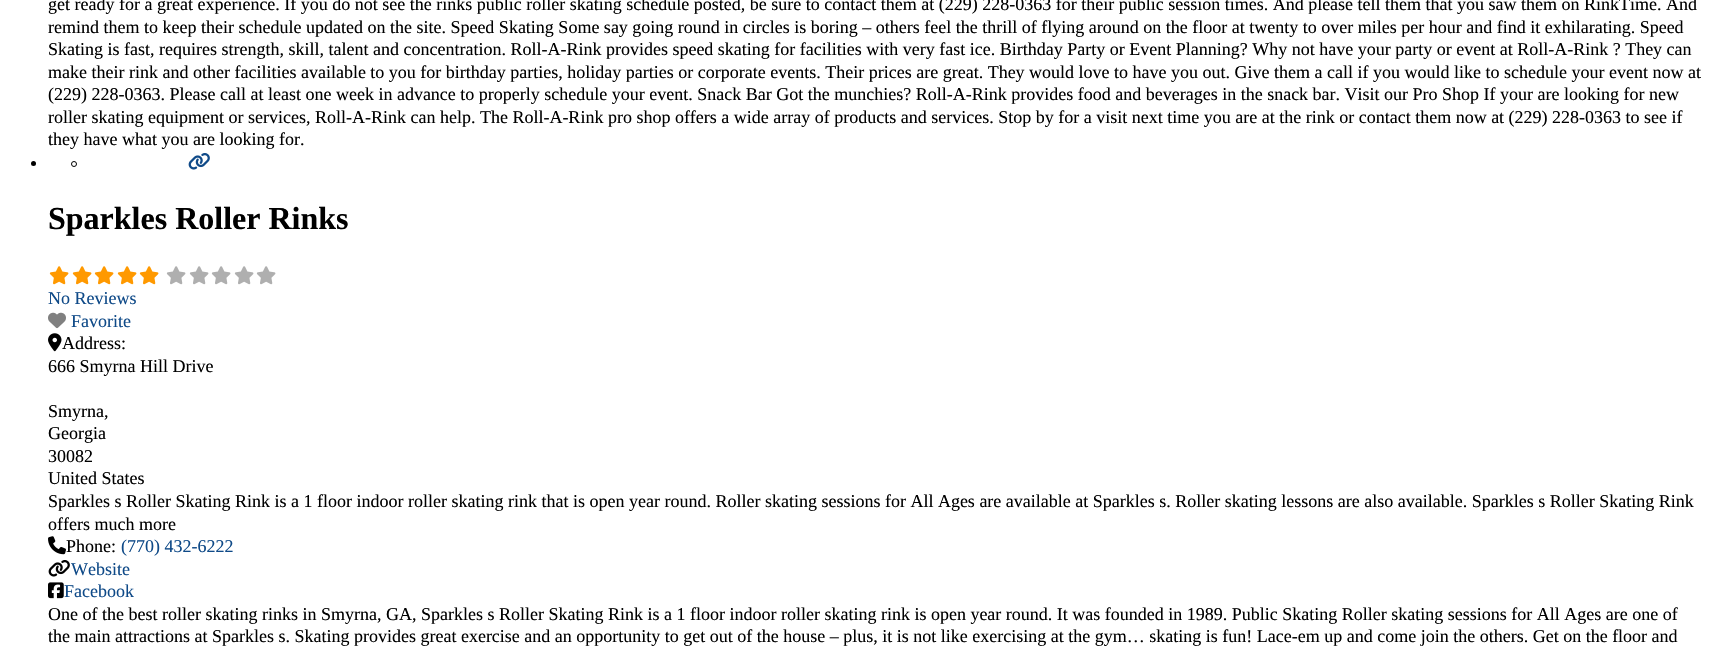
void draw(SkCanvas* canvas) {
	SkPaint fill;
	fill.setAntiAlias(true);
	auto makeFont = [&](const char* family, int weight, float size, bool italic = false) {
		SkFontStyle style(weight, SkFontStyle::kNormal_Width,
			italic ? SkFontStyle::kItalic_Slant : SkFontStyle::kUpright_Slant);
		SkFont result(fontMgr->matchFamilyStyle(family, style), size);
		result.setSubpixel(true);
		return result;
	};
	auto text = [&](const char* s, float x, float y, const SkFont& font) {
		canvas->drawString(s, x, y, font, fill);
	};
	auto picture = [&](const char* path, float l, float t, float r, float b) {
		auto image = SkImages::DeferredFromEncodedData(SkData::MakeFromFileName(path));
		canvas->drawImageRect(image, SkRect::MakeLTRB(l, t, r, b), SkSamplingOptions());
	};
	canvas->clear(0xFFFFFFFF);
	fill.setColor(0xFF000000);
	canvas->drawCircle(33.5f, 163.5f, 2.5f, fill);
	fill.setStyle(SkPaint::kStroke_Style);
	fill.setStrokeWidth(1);
	canvas->drawCircle(74, 164, 2.5f, fill);
	picture("image0.png", 188, 153, 210, 170);
	picture("image1.png", 49, 266, 69, 285);
	picture("image1.png", 72, 266, 92, 285);
	picture("image1.png", 94, 266, 114, 285);
	picture("image1.png", 117, 266, 137, 285);
	picture("image1.png", 139, 266, 159, 285);
	picture("image2.png", 166, 266, 186, 285);
	picture("image2.png", 189, 266, 209, 285);
	picture("image2.png", 211, 266, 231, 285);
	picture("image2.png", 234, 266, 254, 285);
	picture("image2.png", 256, 266, 276, 285);
	picture("image3.png", 48, 312, 66, 329);
	picture("image4.png", 48, 333, 62, 352);
	picture("image5.png", 48, 536, 66, 555);
	picture("image6.png", 48, 560, 70, 577);
	picture("image7.png", 48, 582, 64, 599);
	auto font1 = makeFont("Liberation Serif", 400, 18);
	fill.setStyle(SkPaint::kFill_Style);
	text("get ready for a great experience. If you do not see the rinks public roller skating schedule posted, be sure to contact them at (229) 228-0363 for their public session times. And please tell them that you saw them on RinkTime. And", 48, 10, font1);
	text("remind them to keep their schedule updated on the site. Speed Skating Some say going round in circles is boring – others feel the thrill of flying around on the floor at twenty to over miles per hour and find it exhilarating. Speed", 48, 33, font1);
	text("Skating is fast, requires strength, skill, talent and concentration. Roll-A-Rink provides speed skating for facilities with very fast ice. Birthday Party or Event Planning? Why not have your party or event at Roll-A-Rink ? They can", 48, 55, font1);
	text("make their rink and other facilities available to you for birthday parties, holiday parties or corporate events. Their prices are great. They would love to have you out. Give them a call if you would like to schedule your event now at", 48, 78, font1);
	text("(229) 228-0363. Please call at least one week in advance to properly schedule your event. Snack Bar Got the munchies? Roll-A-Rink provides food and beverages in the snack bar. Visit our Pro Shop If your are looking for new", 48, 100, font1);
	text("roller skating equipment or services, Roll-A-Rink can help. The Roll-A-Rink pro shop offers a wide array of products and services. Stop by for a visit next time you are at the rink or contact them now at (229) 228-0363 to see if", 48, 123, font1);
	text("they have what you are looking for.", 48, 145, font1);
	auto font2 = makeFont("Liberation Serif", 700, 32);
	text("Sparkles Roller Rinks", 48, 229, font2);
	fill.setColor(0xFF0F4A88);
	text("No Reviews", 48, 304, font1);
	text("Favorite", 71, 327, font1);
	fill.setColor(0xFF000000);
	text("Address:", 62, 349, font1);
	text("666 Smyrna Hill Drive", 48, 372, font1);
	text("Smyrna,", 48, 417, font1);
	text("Georgia", 48, 439, font1);
	text("30082", 48, 462, font1);
	text("United States", 48, 484, font1);
	text("Sparkles s Roller Skating Rink is a 1 floor indoor roller skating rink that is open year round. Roller skating sessions for All Ages are available at Sparkles s. Roller skating lessons are also available. Sparkles s Roller Skating Rink", 48, 507, font1);
	text("offers much more", 48, 530, font1);
	text("Phone:", 66, 552, font1);
	fill.setColor(0xFF0F4A88);
	text("(770) 432-6222", 121, 552, font1);
	text("Website", 71, 575, font1);
	text("Facebook", 64, 597, font1);
	fill.setColor(0xFF000000);
	text("One of the best roller skating rinks in Smyrna, GA, Sparkles s Roller Skating Rink is a 1 floor indoor roller skating rink is open year round. It was founded in 1989. Public Skating Roller skating sessions for All Ages are one of", 48, 620, font1);
	text("the main attractions at Sparkles s. Skating provides great exercise and an opportunity to get out of the house – plus, it is not like exercising at the gym… skating is fun! Lace-em up and come join the others. Get on the floor and", 48, 642, font1);
}
